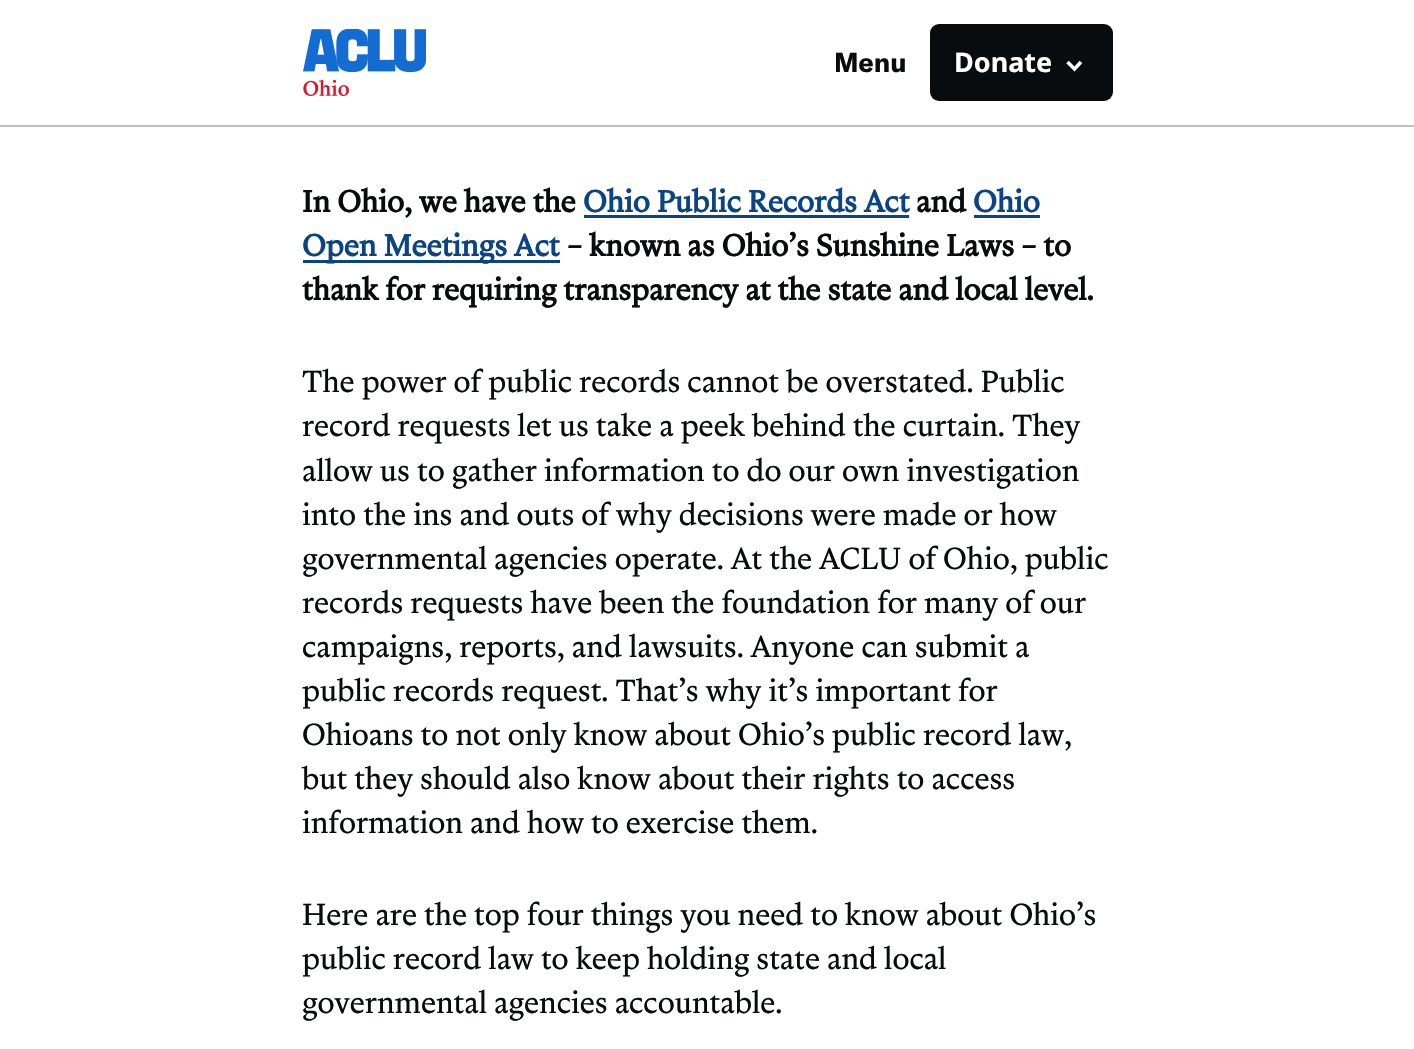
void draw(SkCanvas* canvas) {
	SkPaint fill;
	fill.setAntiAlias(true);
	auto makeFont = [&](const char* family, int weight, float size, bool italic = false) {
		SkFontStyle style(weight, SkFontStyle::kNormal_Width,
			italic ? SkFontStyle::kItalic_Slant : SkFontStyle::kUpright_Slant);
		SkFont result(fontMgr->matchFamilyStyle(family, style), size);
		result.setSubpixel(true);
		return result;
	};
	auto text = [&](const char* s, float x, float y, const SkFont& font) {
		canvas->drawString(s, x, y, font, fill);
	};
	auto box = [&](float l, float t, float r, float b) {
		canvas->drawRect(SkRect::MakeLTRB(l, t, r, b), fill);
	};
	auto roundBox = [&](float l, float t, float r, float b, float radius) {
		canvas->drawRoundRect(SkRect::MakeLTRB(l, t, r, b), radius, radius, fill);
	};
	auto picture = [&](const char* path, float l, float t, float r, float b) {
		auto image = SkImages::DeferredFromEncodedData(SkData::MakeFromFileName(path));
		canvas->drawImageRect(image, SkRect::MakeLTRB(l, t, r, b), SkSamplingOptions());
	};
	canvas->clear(0xFFFFFFFF);
	fill.setColor(0xFFBFBFBF);
	box(0, 125, 1414, 127);
	picture("image0.png", 303, 29, 426, 96);
	fill.setColor(0xFF090C0F);
	roundBox(930, 24, 1113, 101, 9);
	fill.setStyle(SkPaint::kStroke_Style);
	fill.setStrokeWidth(3.5f);
	fill.setColor(0xFFFFFFFF);
	canvas->drawPath(SkPathBuilder().moveTo(1067.5f, 62).lineTo(1074.5f, 69).lineTo(1081, 62).detach(), fill);
	fill.setStyle(SkPaint::kFill_Style);
	fill.setColor(0xFF0C4383);
	box(584, 215, 909, 218);
	box(974, 215, 1040, 218);
	box(303, 260, 560, 263);
	auto font1 = makeFont("GT America", 700, 27);
	fill.setColor(0xFF090C0F);
	text("Menu", 834, 72, font1);
	auto font2 = makeFont("Noto Sans", 700, 27);
	fill.setColor(0xFFFFFFFF);
	text("Donate", 954, 72, font2);
	auto font3 = makeFont("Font", 700, 31.5f);
	fill.setColor(0xFF090C0F);
	text("In Ohio, we have the", 302, 212, font3);
	fill.setColor(0xFF0C4383);
	text("Ohio Public Records Act", 583, 212, font3);
	fill.setColor(0xFF090C0F);
	text("and", 916, 212, font3);
	fill.setColor(0xFF0C4383);
	text("Ohio", 973, 212, font3);
	text("Open Meetings Act", 302, 256, font3);
	fill.setColor(0xFF090C0F);
	text("– known as Ohio’s Sunshine Laws – to", 567, 256, font3);
	text("thank for requiring transparency at the state and local level.", 302, 300, font3);
	auto font4 = makeFont("Font", 400, 31.5f);
	text("The power of public records cannot be overstated. Public", 302, 392, font4);
	text("record requests let us take a peek behind the curtain. They", 302, 436, font4);
	text("allow us to gather information to do our own investigation", 302, 481, font4);
	text("into the ins and outs of why decisions were made or how", 302, 525, font4);
	text("governmental agencies operate. At the ACLU of Ohio, public", 302, 569, font4);
	text("records requests have been the foundation for many of our", 302, 613, font4);
	text("campaigns, reports, and lawsuits. Anyone can submit a", 302, 657, font4);
	text("public records request. That’s why it’s important for", 302, 701, font4);
	text("Ohioans to not only know about Ohio’s public record law,", 302, 745, font4);
	text("but they should also know about their rights to access", 302, 789, font4);
	text("information and how to exercise them.", 302, 833, font4);
	text("Here are the top four things you need to know about Ohio’s", 302, 925, font4);
	text("public record law to keep holding state and local", 302, 969, font4);
	text("governmental agencies accountable.", 302, 1013, font4);
}
